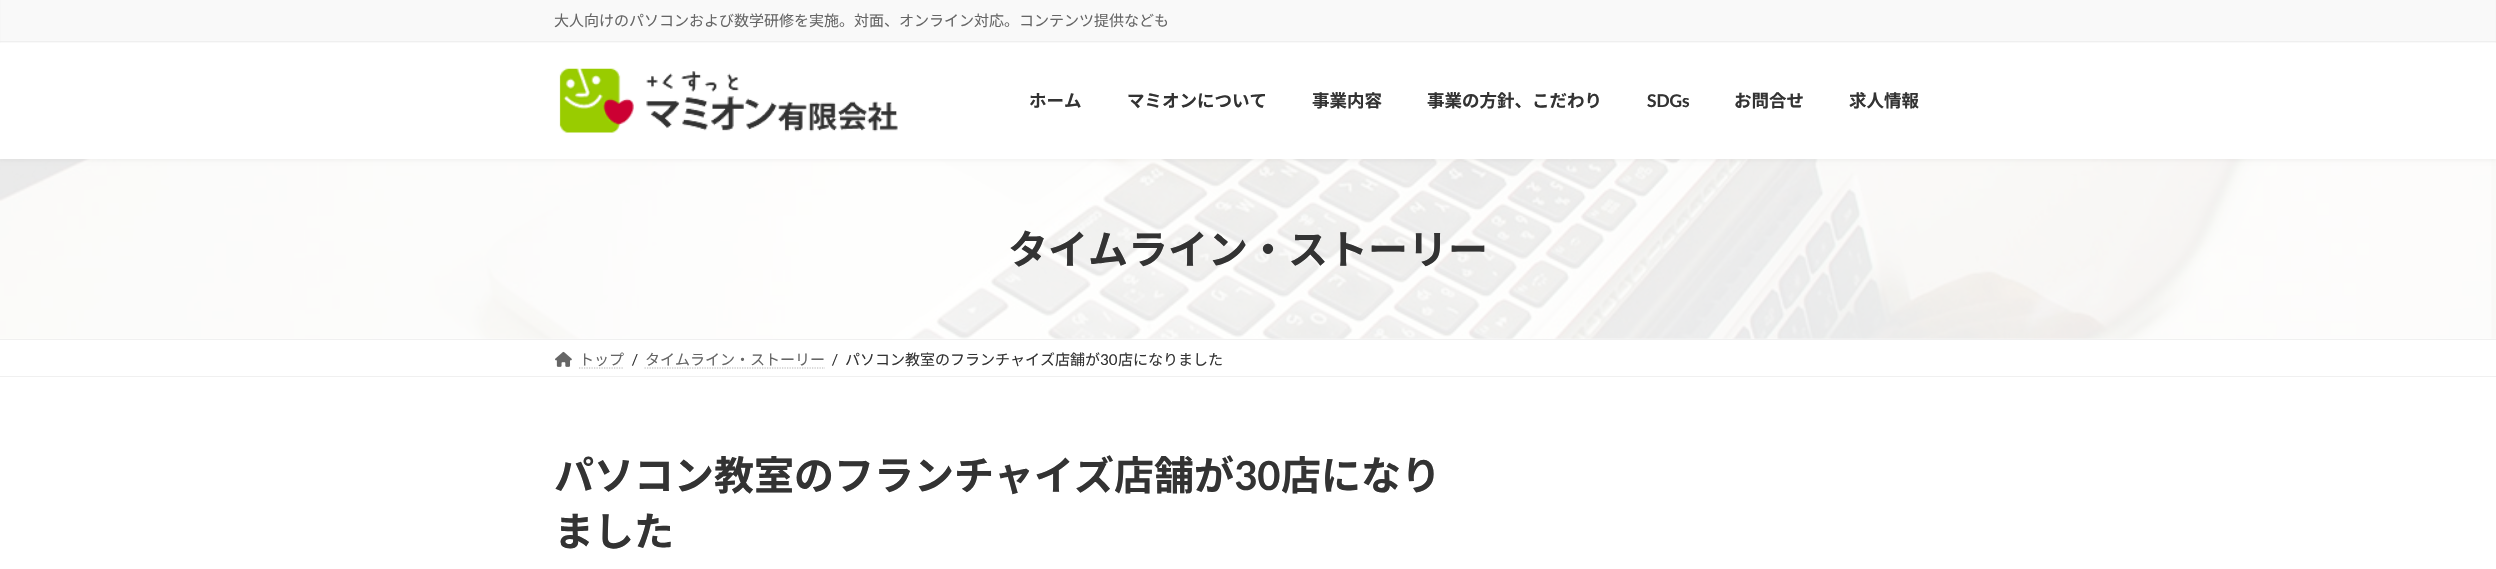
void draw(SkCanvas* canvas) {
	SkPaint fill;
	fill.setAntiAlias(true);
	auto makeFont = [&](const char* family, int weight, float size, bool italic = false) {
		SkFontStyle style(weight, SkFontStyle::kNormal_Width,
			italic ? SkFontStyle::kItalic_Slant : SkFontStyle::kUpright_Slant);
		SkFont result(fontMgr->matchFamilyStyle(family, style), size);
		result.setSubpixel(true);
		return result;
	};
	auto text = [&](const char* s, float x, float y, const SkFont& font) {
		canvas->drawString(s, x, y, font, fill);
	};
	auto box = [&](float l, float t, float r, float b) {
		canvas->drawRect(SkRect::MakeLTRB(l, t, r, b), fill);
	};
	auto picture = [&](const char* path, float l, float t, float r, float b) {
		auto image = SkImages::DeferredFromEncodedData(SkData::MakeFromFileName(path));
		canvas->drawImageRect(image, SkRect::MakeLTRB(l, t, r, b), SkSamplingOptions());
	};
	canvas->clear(0xFFFFFFFF);
	picture("image1.png", 0, 159, 2496, 339);
	fill.setColor(0x0D000000);
	fill.setMaskFilter(SkMaskFilter::MakeBlur(kNormal_SkBlurStyle, 2));
	canvas->drawRect(SkRect::MakeLTRB(0, -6, 2496, 160), fill);
	fill.setMaskFilter(nullptr);
	fill.setColor(0xFFFFFFFF);
	box(0, 43, 2496, 159);
	fill.setColor(0xFFF9F9F9);
	box(1, 0, 2495, 43);
	fill.setColor(0xFFEFEFEF);
	box(0, 41, 2496, 42);
	picture("image0.png", 559, 68, 898, 133);
	fill.setColor(0xFFF0F0F0);
	box(0, 339, 2496, 340);
	box(0, 376, 2496, 377);
	picture("image2.png", 555, 351, 572, 367);
	fill.setStyle(SkPaint::kStroke_Style);
	fill.setStrokeWidth(1.2f);
	fill.setColor(0xFFB3B3B3);
	fill.setPathEffect(SkDashPathEffect::Make({{1.25f, 1.25f}}, 0));
	canvas->drawPath(SkPathBuilder().moveTo(579, 368).lineTo(624, 368).detach(), fill);
	fill.setPathEffect(nullptr);
	fill.setPathEffect(SkDashPathEffect::Make({{1.25f, 1.25f}}, 0));
	canvas->drawPath(SkPathBuilder().moveTo(644.5f, 368).lineTo(825, 368).detach(), fill);
	fill.setPathEffect(nullptr);
	auto font1 = makeFont("Noto Sans JP", 400, 15);
	fill.setStyle(SkPaint::kFill_Style);
	fill.setColor(0xFF666666);
	text("大人向けのパソコンおよび数学研修を実施。対面、オンライン対応。コンテンツ提供なども", 554, 26, font1);
	auto font2 = makeFont("Noto Sans JP", 700, 17.5f);
	fill.setColor(0xFF333333);
	text("ホーム", 1029, 107, font2);
	text("マミオンについて", 1127, 107, font2);
	text("事業内容", 1312, 107, font2);
	text("事業の方針、こだわり", 1427, 107, font2);
	auto font3 = makeFont("Lato", 700, 17.5f);
	text("SDGs", 1647, 107, font3);
	text("お問合せ", 1734, 107, font2);
	text("求人情報", 1849, 107, font2);
	auto font4 = makeFont("Noto Sans JP", 700, 40);
	text("タイムライン・ストーリー", 1008, 264, font4);
	fill.setColor(0xFF666666);
	text("トップ", 579, 365, font1);
	auto font5 = makeFont("Lato", 400, 15);
	fill.setColor(0xFF333333);
	text("/", 632, 365, font5);
	fill.setColor(0xFF666666);
	text("タイムライン・ストーリー", 645, 365, font1);
	fill.setColor(0xFF333333);
	text("/", 832, 365, font5);
	text("パソコン教室のフランチャイズ店舗が", 845, 365, font1);
	text("30", 1100, 365, font5);
	text("店になりました", 1118, 365, font1);
	text("パソコン教室のフランチャイズ店舗が", 554, 490, font4);
	auto font6 = makeFont("Lato", 700, 40);
	text("30", 1234, 490, font6);
	text("店になり", 1281, 490, font4);
	text("ました", 554, 546, font4);
}
